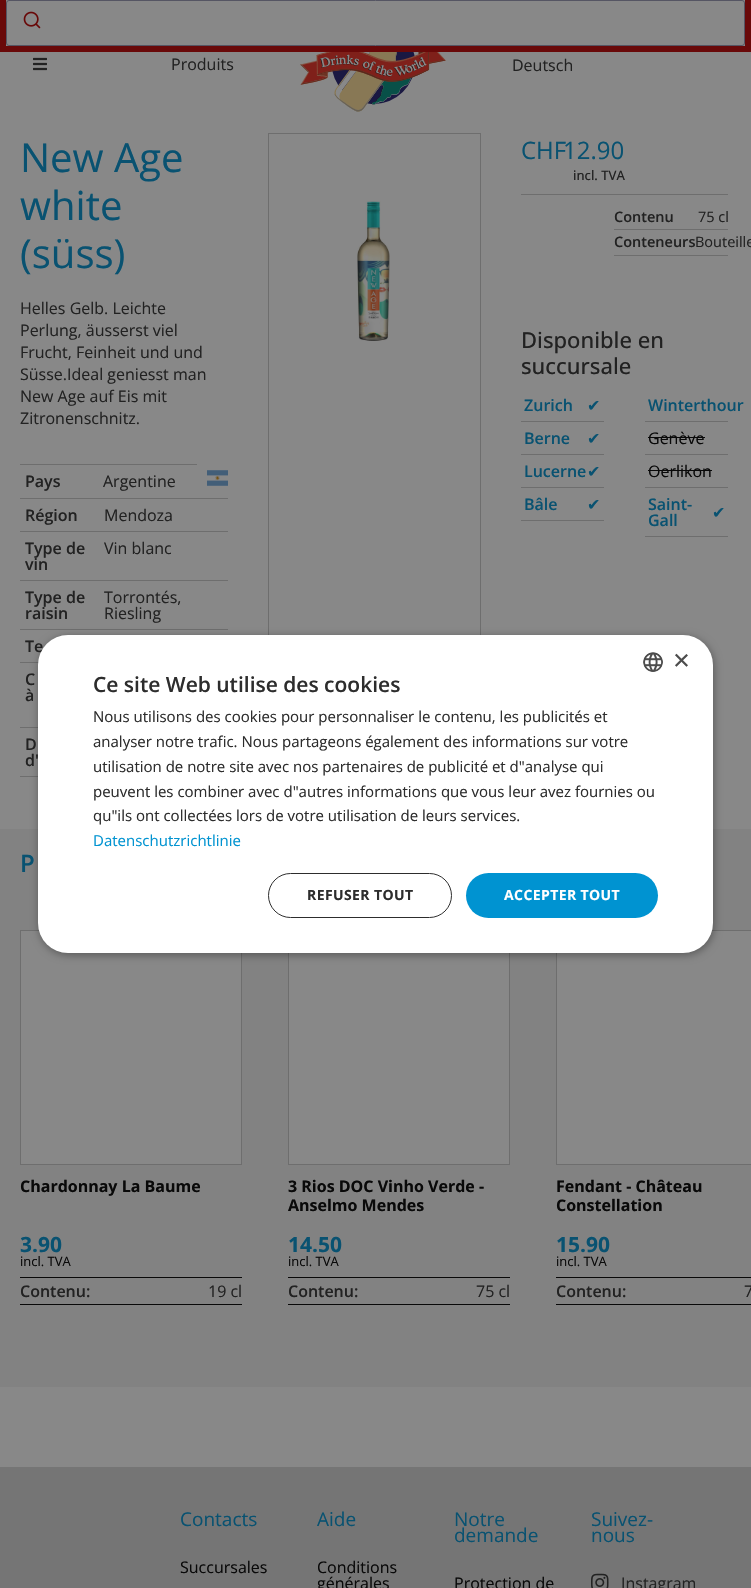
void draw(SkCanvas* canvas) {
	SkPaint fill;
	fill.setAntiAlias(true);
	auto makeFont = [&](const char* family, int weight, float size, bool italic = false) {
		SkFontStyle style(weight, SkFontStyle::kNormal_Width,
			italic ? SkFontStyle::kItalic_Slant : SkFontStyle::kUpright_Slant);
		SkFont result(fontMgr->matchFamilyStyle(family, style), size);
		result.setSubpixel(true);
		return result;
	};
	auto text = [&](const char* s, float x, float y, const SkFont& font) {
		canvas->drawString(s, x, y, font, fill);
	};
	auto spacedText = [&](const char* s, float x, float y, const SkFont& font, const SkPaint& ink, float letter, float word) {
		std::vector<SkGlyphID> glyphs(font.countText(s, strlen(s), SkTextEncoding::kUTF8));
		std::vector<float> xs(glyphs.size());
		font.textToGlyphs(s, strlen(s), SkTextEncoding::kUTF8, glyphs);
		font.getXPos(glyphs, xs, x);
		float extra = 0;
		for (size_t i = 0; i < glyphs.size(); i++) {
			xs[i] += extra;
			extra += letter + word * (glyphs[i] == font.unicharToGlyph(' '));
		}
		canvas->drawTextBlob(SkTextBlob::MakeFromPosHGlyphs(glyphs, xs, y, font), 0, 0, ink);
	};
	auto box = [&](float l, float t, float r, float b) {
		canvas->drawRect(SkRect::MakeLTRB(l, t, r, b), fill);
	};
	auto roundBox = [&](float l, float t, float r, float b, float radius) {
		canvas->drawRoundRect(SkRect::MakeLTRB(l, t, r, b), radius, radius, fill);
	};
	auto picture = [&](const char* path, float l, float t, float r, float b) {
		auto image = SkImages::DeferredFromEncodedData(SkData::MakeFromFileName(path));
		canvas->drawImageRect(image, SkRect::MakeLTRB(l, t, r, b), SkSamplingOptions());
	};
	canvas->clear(0xFF888888);
	fill.setColor(0xFF690909);
	box(745, 0, 751, 52);
	box(0, 46, 751, 52);
	box(0, 0, 6, 52);
	fill.setStyle(SkPaint::kStroke_Style);
	fill.setStrokeWidth(1);
	fill.setColor(0xFF555563);
	canvas->drawRoundRect(SkRect::MakeLTRB(6.5f, 0.5f, 744.5f, 45.5f), 2.5f, 2.5f, fill);
	picture("image0.png", 23, 11, 41, 29);
	picture("image1.png", 33, 57, 47, 71);
	picture("image2.png", 300, 52, 446, 112);
	fill.setStyle(SkPaint::kFill_Style);
	fill.setColor(0xFF6E6E6E);
	box(20, 464, 197, 465);
	picture("image3.png", 207, 470, 228, 486);
	box(20, 498, 228, 499);
	box(20, 531, 228, 532);
	box(20, 580, 228, 581);
	box(20, 629, 228, 630);
	box(20, 662, 39, 663);
	box(20, 727, 38, 728);
	box(20, 776, 38, 777);
	fill.setStyle(SkPaint::kStroke_Style);
	canvas->drawRect(SkRect::MakeLTRB(268.5f, 133.5f, 480.5f, 669.5f), fill);
	picture("image4.png", 357, 201, 390, 341);
	fill.setStyle(SkPaint::kFill_Style);
	box(521, 194, 728, 195);
	box(614, 229, 728, 230);
	box(614, 255, 728, 256);
	box(521, 421, 604, 422);
	box(521, 454, 604, 455);
	box(521, 487, 604, 488);
	box(521, 520, 604, 521);
	box(645, 421, 728, 422);
	box(645, 454, 728, 455);
	fill.setColor(0xFF090909);
	box(648, 437, 705, 438);
	fill.setColor(0xFF6E6E6E);
	box(645, 487, 728, 488);
	fill.setColor(0xFF090909);
	box(648, 470, 712, 471);
	fill.setColor(0xFF6E6E6E);
	box(645, 536, 728, 537);
	fill.setColor(0xFF828282);
	box(0, 829, 751, 1387);
	fill.setColor(0xFF888888);
	canvas->drawRect(SkRect::MakeLTRB(20.5f, 930.5f, 241.5f, 1164.5f), fill);
	fill.setStyle(SkPaint::kStroke_Style);
	fill.setColor(0xFF6E6E6E);
	canvas->drawRect(SkRect::MakeLTRB(20.5f, 930.5f, 241.5f, 1164.5f), fill);
	fill.setStyle(SkPaint::kFill_Style);
	fill.setColor(0xFF090909);
	box(20, 1277, 242, 1278);
	box(20, 1304, 242, 1305);
	fill.setColor(0xFF888888);
	box(289, 953, 509, 1164);
	fill.setStyle(SkPaint::kStroke_Style);
	fill.setColor(0xFF6E6E6E);
	canvas->drawRect(SkRect::MakeLTRB(288.5f, 930.5f, 509.5f, 1164.5f), fill);
	fill.setStyle(SkPaint::kFill_Style);
	fill.setColor(0xFF090909);
	box(288, 1277, 510, 1278);
	box(288, 1304, 510, 1305);
	fill.setColor(0xFF888888);
	canvas->drawRect(SkRect::MakeLTRB(556.5f, 930.5f, 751.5f, 1164.5f), fill);
	fill.setStyle(SkPaint::kStroke_Style);
	fill.setColor(0xFF6E6E6E);
	canvas->drawRect(SkRect::MakeLTRB(556.5f, 930.5f, 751.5f, 1164.5f), fill);
	fill.setStyle(SkPaint::kFill_Style);
	fill.setColor(0xFF090909);
	box(556, 1277, 751, 1278);
	box(556, 1304, 751, 1305);
	fill.setColor(0x59000000);
	fill.setMaskFilter(SkMaskFilter::MakeBlur(kNormal_SkBlurStyle, 4));
	canvas->drawRoundRect(SkRect::MakeLTRB(39, 637, 714, 955), 30, 30, fill);
	fill.setMaskFilter(nullptr);
	fill.setColor(0xFF757575);
	box(0, 1467, 751, 1588);
	picture("image6.png", 591, 1573, 609, 1588);
	auto font1 = makeFont("Open Sans", 400, 16);
	fill.setColor(0xFF222222);
	text("Produits", 171, 70, font1);
	text("Deutsch", 512, 71, font1);
	auto font2 = makeFont("Open Sans", 400, 40);
	fill.setColor(0xFF095271);
	text("New Age", 20, 172, font2);
	text("white", 20, 220, font2);
	text("(süss)", 20, 268, font2);
	fill.setColor(0xFF222222);
	text("Helles Gelb. Leichte", 20, 314, font1);
	text("Perlung, äusserst viel", 20, 336, font1);
	text("Frucht, Feinheit und und", 20, 358, font1);
	text("Süsse.Ideal geniesst man", 20, 380, font1);
	text("New Age auf Eis mit", 20, 402, font1);
	text("Zitronenschnitz.", 20, 424, font1);
	auto font3 = makeFont("Open Sans", 600, 16);
	text("Pays", 25, 487, font3);
	text("Argentine", 103, 487, font1);
	text("Région", 25, 521, font3);
	text("Mendoza", 104, 521, font1);
	text("Type de", 25, 554, font3);
	text("vin", 25, 570, font3);
	text("Vin blanc", 104, 554, font1);
	text("Type de", 25, 603, font3);
	text("raisin", 25, 619, font3);
	text("Torrontés,", 104, 603, font1);
	text("Riesling", 104, 619, font1);
	text("Te", 25, 652, font3);
	text("C", 25, 685, font3);
	text("à", 25, 701, font3);
	text("D", 25, 750, font3);
	text("d'", 25, 766, font3);
	auto font4 = makeFont("Open Sans", 400, 24);
	fill.setColor(0xFF095271);
	text("CHF", 521, 159, font4);
	text("12.90", 563, 159, font4);
	auto font5 = makeFont("Open Sans", 500, 13);
	fill.setColor(0xFF222222);
	text("incl. TVA", 573, 180, font5);
	auto font6 = makeFont("Open Sans", 600, 14.5f);
	text("Contenu", 614, 222, font6);
	auto font7 = makeFont("Open Sans", 400, 14.5f);
	text("75 cl", 698, 222, font7);
	text("Conteneurs", 614, 247, font6);
	text("Bouteille", 695, 247, font7);
	auto font8 = makeFont("Open Sans", 500, 22);
	text("Disponible en", 521, 348, font8);
	text("succursale", 521, 374, font8);
	fill.setColor(0xFF095271);
	text("Zurich", 524, 411, font3);
	auto font9 = makeFont("DejaVu Sans", 400, 16);
	text("✔", 587, 411, font9);
	text("Berne", 524, 444, font3);
	text("✔", 587, 444, font9);
	text("Lucerne", 524, 477, font3);
	text("✔", 587, 477, font9);
	text("Bâle", 524, 510, font3);
	text("✔", 587, 510, font9);
	text("Winterthour", 648, 411, font3);
	fill.setColor(0xFF090909);
	text("Genève", 648, 444, font1);
	text("Oerlikon", 648, 477, font1);
	fill.setColor(0xFF095271);
	text("Saint-", 648, 510, font3);
	text("Gall", 648, 526, font3);
	text("✔", 712, 518, font9);
	auto font10 = makeFont("Open Sans", 600, 24);
	text("P", 20, 872, font10);
	auto font11 = makeFont("Open Sans", 700, 16);
	fill.setColor(0xFF090909);
	text("Chardonnay La Baume", 20, 1192, font11);
	auto font12 = makeFont("Open Sans", 700, 21);
	fill.setColor(0xFF095271);
	text("3.90", 20, 1252, font12);
	auto font13 = makeFont("Open Sans", 400, 13);
	fill.setColor(0xFF090909);
	text("incl. TVA", 20, 1266, font13);
	fill.setColor(0xFF222222);
	text("Contenu:", 20, 1297, font3);
	text("19 cl", 208, 1297, font1);
	fill.setColor(0xFF090909);
	text("3 Rios DOC Vinho Verde -", 288, 1192, font11);
	text("Anselmo Mendes", 288, 1211, font11);
	fill.setColor(0xFF095271);
	text("14.50", 288, 1252, font12);
	fill.setColor(0xFF090909);
	text("incl. TVA", 288, 1266, font13);
	fill.setColor(0xFF222222);
	text("Contenu:", 288, 1297, font3);
	text("75 cl", 476, 1297, font1);
	fill.setColor(0xFF090909);
	text("Fendant - Château", 556, 1192, font11);
	text("Constellation", 556, 1211, font11);
	fill.setColor(0xFF095271);
	text("15.90", 556, 1252, font12);
	fill.setColor(0xFF090909);
	text("incl. TVA", 556, 1266, font13);
	fill.setColor(0xFF222222);
	text("Contenu:", 556, 1297, font3);
	text("7", 744, 1297, font1);
	fill.setColor(0xFFFFFFFF);
	roundBox(38, 635, 713, 953, 30);
	picture("image5.png", 643, 652, 663, 672);
	auto font14 = makeFont("Liberation Sans", 400, 29);
	fill.setColor(0xFF4D4D4D);
	text("×", 673, 670, font14);
	auto font15 = makeFont("Open Sans", 600, 21);
	fill.setColor(0xFF2D2D2D);
	text("Ce site Web utilise des cookies", 93, 692, font15);
	auto font16 = makeFont("Open Sans", 400, 15);
	text("Nous utilisons des cookies pour personnaliser le contenu, les publicités et", 93, 722, font16);
	text("analyser notre trafic. Nous partageons également des informations sur votre", 93, 747, font16);
	text("utilisation de notre site avec nos partenaires de publicité et d\"analyse qui", 93, 772, font16);
	text("peuvent les combiner avec d\"autres informations que vous leur avez fournies ou", 93, 797, font16);
	text("qu\"ils ont collectées lors de votre utilisation de leurs services.", 93, 821, font16);
	fill.setColor(0xFF0093D1);
	text("Datenschutzrichtlinie", 93, 846, font16);
	fill.setStyle(SkPaint::kStroke_Style);
	fill.setColor(0xFF2D2D2D);
	canvas->drawRoundRect(SkRect::MakeLTRB(268.5f, 873.5f, 451.5f, 917.5f), 22, 22, fill);
	auto font17 = makeFont("Open Sans", 700, 14);
	fill.setStyle(SkPaint::kFill_Style);
	spacedText("REFUSER TOUT", 307, 900, font17, fill, 0.4f, 0);
	fill.setColor(0xFF0093D1);
	roundBox(466, 873, 658, 918, 22.5f);
	fill.setColor(0xFFFFFFFF);
	spacedText("ACCEPTER TOUT", 504, 900, font17, fill, 0.4f, 0);
	auto font18 = makeFont("Open Sans", 400, 19);
	fill.setColor(0xFF095271);
	text("Contacts", 180, 1526, font18);
	fill.setColor(0xFF090909);
	text("Succursales", 180, 1573, font1);
	fill.setColor(0xFF095271);
	text("Aide", 317, 1526, font18);
	fill.setColor(0xFF090909);
	text("Conditions", 317, 1573, font1);
	text("générales", 317, 1589, font1);
	fill.setColor(0xFF095271);
	text("Notre", 454, 1526, font18);
	text("demande", 454, 1542, font18);
	fill.setColor(0xFF090909);
	text("Protection de", 454, 1589, font1);
	fill.setColor(0xFF095271);
	text("Suivez-", 591, 1526, font18);
	text("nous", 591, 1542, font18);
	fill.setColor(0xFF222222);
	text("Instagram", 621, 1589, font1);
}
